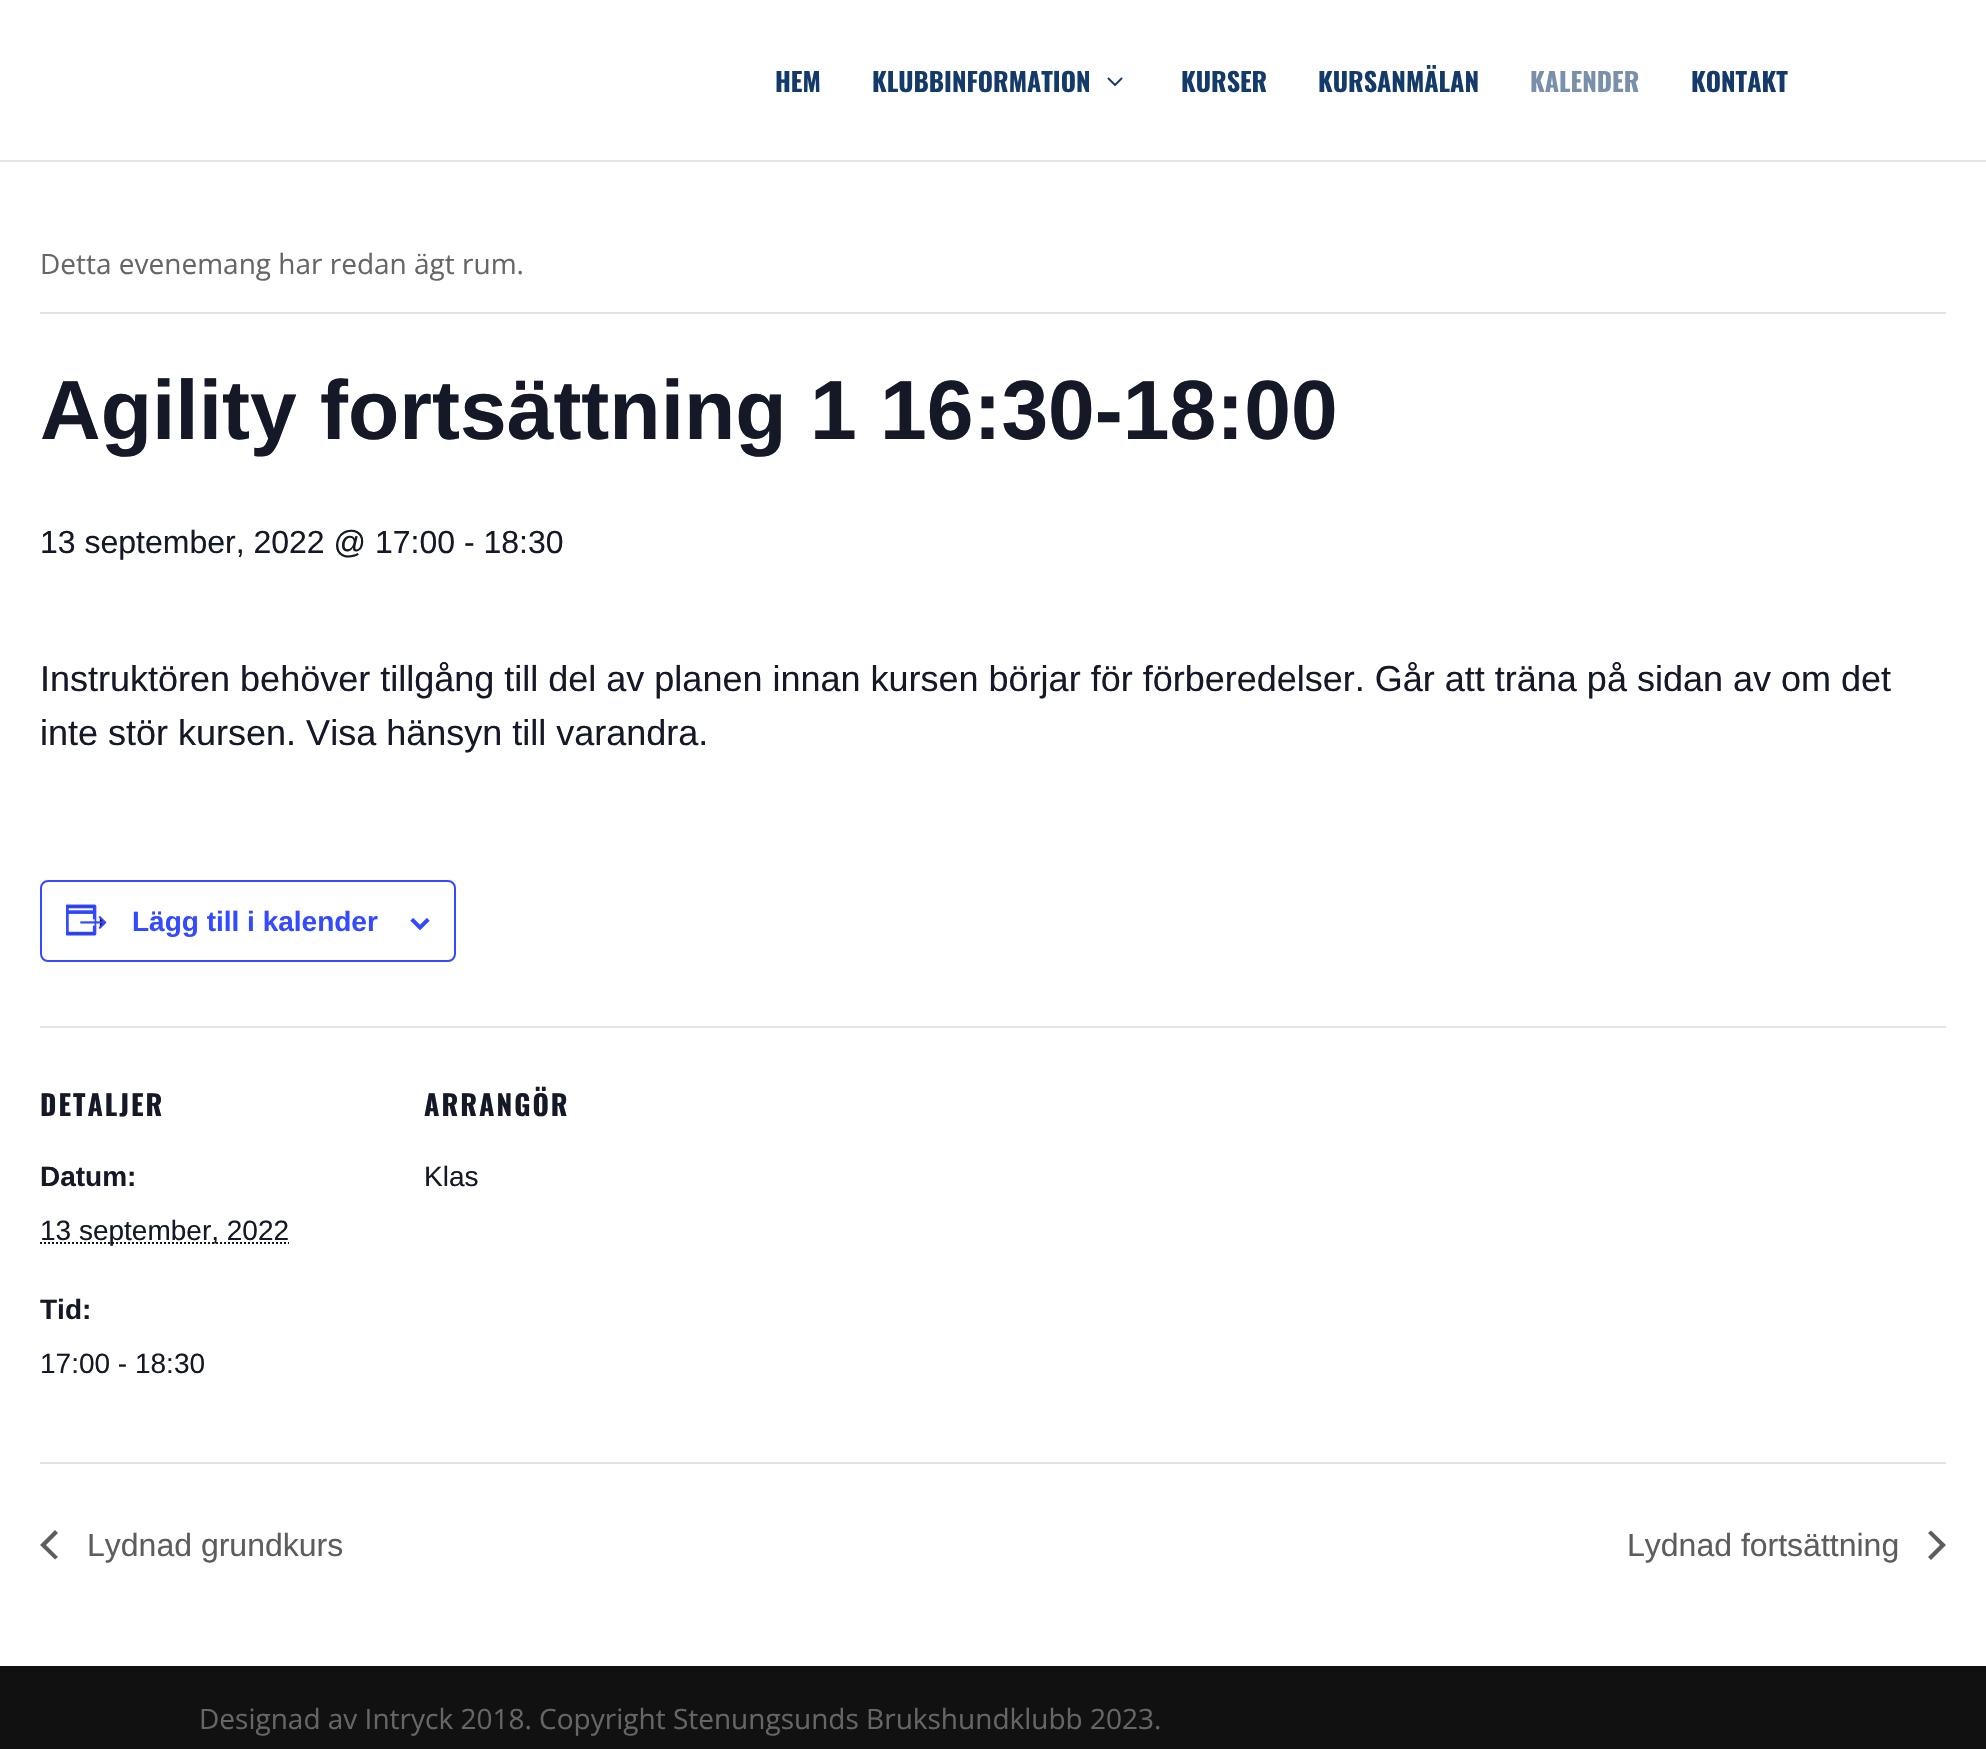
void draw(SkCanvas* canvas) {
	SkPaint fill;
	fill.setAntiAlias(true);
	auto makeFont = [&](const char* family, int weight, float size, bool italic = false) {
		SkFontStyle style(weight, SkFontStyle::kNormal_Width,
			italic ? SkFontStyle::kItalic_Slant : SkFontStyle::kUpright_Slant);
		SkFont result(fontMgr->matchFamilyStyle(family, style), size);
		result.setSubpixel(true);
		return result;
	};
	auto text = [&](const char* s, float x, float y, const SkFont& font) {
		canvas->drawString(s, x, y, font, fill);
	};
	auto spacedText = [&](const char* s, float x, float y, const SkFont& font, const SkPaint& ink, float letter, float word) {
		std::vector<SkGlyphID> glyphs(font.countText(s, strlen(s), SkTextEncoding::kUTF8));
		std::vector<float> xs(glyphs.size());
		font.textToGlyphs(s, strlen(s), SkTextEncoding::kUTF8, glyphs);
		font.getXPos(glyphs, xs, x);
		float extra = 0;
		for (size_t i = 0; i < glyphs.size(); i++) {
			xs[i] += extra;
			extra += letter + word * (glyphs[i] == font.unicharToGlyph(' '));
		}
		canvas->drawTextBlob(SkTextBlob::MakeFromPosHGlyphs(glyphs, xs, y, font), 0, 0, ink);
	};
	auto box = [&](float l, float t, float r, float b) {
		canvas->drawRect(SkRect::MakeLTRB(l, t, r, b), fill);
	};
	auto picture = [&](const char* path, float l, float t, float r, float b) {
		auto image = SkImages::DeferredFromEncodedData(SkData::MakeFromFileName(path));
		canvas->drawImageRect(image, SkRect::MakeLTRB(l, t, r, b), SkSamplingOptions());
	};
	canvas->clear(0xFFFFFFFF);
	fill.setColor(0xFFE6E6E6);
	box(0, 160, 1986, 162);
	picture("image0.png", 1107, 77, 1123, 86);
	fill.setColor(0xFFE4E4E4);
	box(40, 312, 1946, 314);
	fill.setStyle(SkPaint::kStroke_Style);
	fill.setStrokeWidth(2);
	fill.setColor(0xFF334AFF);
	canvas->drawRoundRect(SkRect::MakeLTRB(41, 881, 455, 961), 7, 7, fill);
	picture("image1.png", 66, 904, 107, 936);
	picture("image2.png", 410, 918, 430, 930);
	fill.setStyle(SkPaint::kFill_Style);
	fill.setColor(0xFFE4E4E4);
	box(40, 1026, 1946, 1028);
	fill.setStyle(SkPaint::kStroke_Style);
	fill.setColor(0xFF141827);
	fill.setPathEffect(SkDashPathEffect::Make({{2, 2}}, 0));
	canvas->drawPath(SkPathBuilder().moveTo(40, 1243).lineTo(289, 1243).detach(), fill);
	fill.setPathEffect(nullptr);
	fill.setStyle(SkPaint::kFill_Style);
	fill.setColor(0xFFE4E4E4);
	box(40, 1462, 1946, 1464);
	fill.setColor(0xFF5D5D5D);
	canvas->drawPath(SkPathBuilder().moveTo(58, 1557).lineTo(55, 1559.5f).lineTo(40, 1545).lineTo(55, 1530).lineTo(58, 1533).lineTo(46, 1545).close().detach(), fill);
	canvas->drawPath(SkPathBuilder().moveTo(1928, 1533).lineTo(1931, 1530.5f).lineTo(1946, 1545).lineTo(1931, 1560).lineTo(1928, 1557).lineTo(1940, 1545).close().detach(), fill);
	fill.setColor(0xFF111111);
	box(0, 1666, 1986, 1749);
	auto font1 = makeFont("Oswald", 700, 26);
	fill.setColor(0xFF143A69);
	text("HEM", 775, 92, font1);
	text("KLUBBINFORMATION", 872, 92, font1);
	text("KURSER", 1181, 92, font1);
	text("KURSANMÄLAN", 1318, 92, font1);
	fill.setColor(0xFF798FAA);
	text("KALENDER", 1530, 92, font1);
	fill.setColor(0xFF143A69);
	text("KONTAKT", 1691, 92, font1);
	auto font2 = makeFont("Open Sans", 400, 28);
	fill.setColor(0xFF666666);
	text("Detta evenemang har redan ägt rum.", 40, 274, font2);
	auto font3 = makeFont("Liberation Sans", 700, 84);
	fill.setColor(0xFF141827);
	text("Agility fortsättning 1 16:30-18:00", 40, 439, font3);
	auto font4 = makeFont("Liberation Sans", 400, 32);
	text("13 september, 2022 @ 17:00 - 18:30", 40, 553, font4);
	auto font5 = makeFont("Liberation Sans", 400, 36);
	text("Instruktören behöver tillgång till del av planen innan kursen börjar för förberedelser. Går att träna på sidan av om det", 40, 691, font5);
	text("inte stör kursen. Visa hänsyn till varandra.", 40, 745, font5);
	auto font6 = makeFont("Liberation Sans", 700, 28);
	fill.setColor(0xFF334AFF);
	text("Lägg till i kalender", 132, 931, font6);
	auto font7 = makeFont("Oswald", 700, 28);
	fill.setColor(0xFF141827);
	spacedText("DETALJER", 40, 1116, font7, fill, 2, 0);
	text("Datum:", 40, 1186, font6);
	auto font8 = makeFont("Liberation Sans", 400, 28);
	text("13 september, 2022", 40, 1240, font8);
	text("Tid:", 40, 1319, font6);
	text("17:00 - 18:30", 40, 1373, font8);
	spacedText("ARRANGÖR", 424, 1116, font7, fill, 2, 0);
	text("Klas", 424, 1186, font8);
	fill.setColor(0xFF5D5D5D);
	text("Lydnad grundkurs", 87, 1556, font4);
	text("Lydnad fortsättning", 1627, 1556, font4);
	fill.setColor(0xFF666666);
	text("Designad av Intryck 2018. Copyright Stenungsunds Brukshundklubb 2023.", 199, 1729, font2);
}
